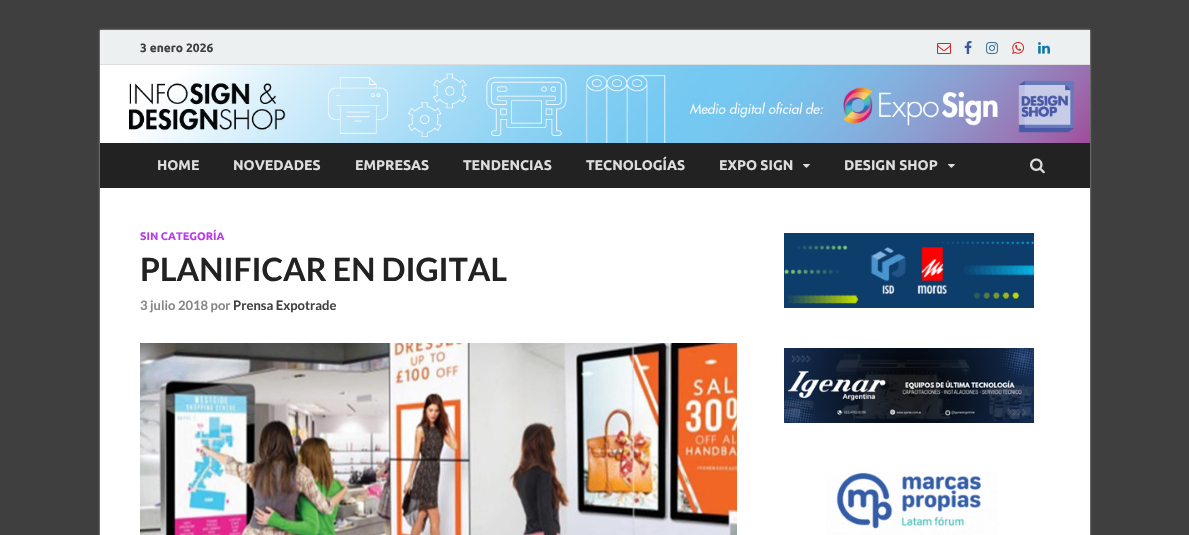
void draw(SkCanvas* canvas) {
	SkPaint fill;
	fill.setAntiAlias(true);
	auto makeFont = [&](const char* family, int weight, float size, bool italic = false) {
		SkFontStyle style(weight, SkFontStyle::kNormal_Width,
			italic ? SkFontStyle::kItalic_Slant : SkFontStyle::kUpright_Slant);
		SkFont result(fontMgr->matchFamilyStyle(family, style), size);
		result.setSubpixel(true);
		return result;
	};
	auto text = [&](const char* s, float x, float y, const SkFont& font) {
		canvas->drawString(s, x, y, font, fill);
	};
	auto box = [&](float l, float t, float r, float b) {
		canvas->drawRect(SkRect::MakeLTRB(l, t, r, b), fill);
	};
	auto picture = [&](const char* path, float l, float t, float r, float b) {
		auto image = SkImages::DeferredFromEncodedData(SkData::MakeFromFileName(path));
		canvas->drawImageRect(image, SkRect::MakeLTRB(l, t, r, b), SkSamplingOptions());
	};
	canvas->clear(0xFF3F3F3F);
	fill.setColor(0xFFBBBBBB);
	fill.setMaskFilter(SkMaskFilter::MakeBlur(kNormal_SkBlurStyle, 1));
	canvas->drawRect(SkRect::MakeLTRB(100, 30, 1090, 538), fill);
	fill.setMaskFilter(nullptr);
	fill.setColor(0xFFFFFFFF);
	box(100, 65, 1090, 535);
	fill.setColor(0xFFECF0F1);
	box(100, 30, 1090, 64);
	fill.setColor(0xFFDDDDDD);
	box(100, 64, 1090, 65);
	picture("image0.png", 937, 43, 951, 54);
	picture("image1.png", 964, 41, 972, 54);
	picture("image2.png", 986, 42, 998, 54);
	picture("image3.png", 1012, 42, 1024, 54);
	picture("image4.png", 1038, 42, 1050, 54);
	picture("image5.png", 129, 65, 1090, 143);
	fill.setColor(0xFF222222);
	box(100, 143, 1090, 188);
	picture("image6.png", 803, 164, 810, 168);
	picture("image6.png", 948, 164, 955, 168);
	picture("image7.png", 1030, 158, 1045, 174);
	picture("image8.png", 140, 343, 737, 535);
	picture("image9.png", 784, 233, 1034, 308);
	picture("image10.png", 784, 348, 1034, 423);
	picture("image11.png", 826, 472, 999, 535);
	auto font1 = makeFont("Ubuntu", 700, 12);
	fill.setColor(0xFF404040);
	text("3 enero 2026", 140, 52, font1);
	auto font2 = makeFont("Ubuntu", 700, 14);
	fill.setColor(0xFFDDDDDD);
	text("HOME", 157, 170, font2);
	text("NOVEDADES", 233, 170, font2);
	text("EMPRESAS", 355, 170, font2);
	text("TENDENCIAS", 463, 170, font2);
	text("TECNOLOGÍAS", 586, 170, font2);
	text("EXPO SIGN", 719, 170, font2);
	text("DESIGN SHOP", 844, 170, font2);
	auto font3 = makeFont("Ubuntu", 700, 11);
	fill.setColor(0xFFB93CEA);
	text("SIN CATEGORÍA", 140, 240, font3);
	auto font4 = makeFont("Lato", 700, 32);
	fill.setColor(0xFF222222);
	text("PLANIFICAR EN DIGITAL", 140, 281, font4);
	auto font5 = makeFont("Lato", 700, 13);
	fill.setColor(0xFF888888);
	text("3 julio 2018 por", 140, 310, font5);
	fill.setColor(0xFF404040);
	text("Prensa Expotrade", 233, 310, font5);
}
